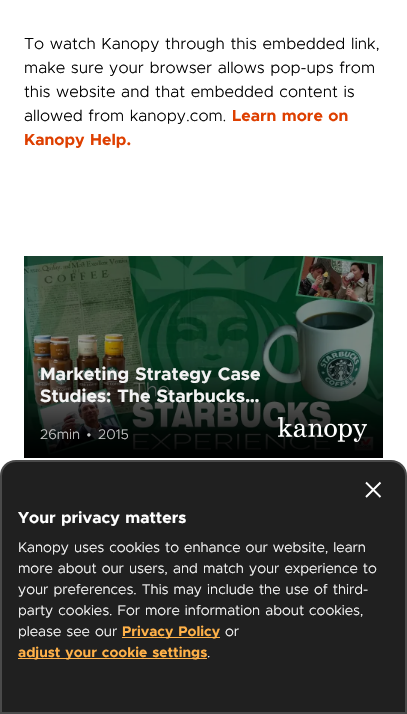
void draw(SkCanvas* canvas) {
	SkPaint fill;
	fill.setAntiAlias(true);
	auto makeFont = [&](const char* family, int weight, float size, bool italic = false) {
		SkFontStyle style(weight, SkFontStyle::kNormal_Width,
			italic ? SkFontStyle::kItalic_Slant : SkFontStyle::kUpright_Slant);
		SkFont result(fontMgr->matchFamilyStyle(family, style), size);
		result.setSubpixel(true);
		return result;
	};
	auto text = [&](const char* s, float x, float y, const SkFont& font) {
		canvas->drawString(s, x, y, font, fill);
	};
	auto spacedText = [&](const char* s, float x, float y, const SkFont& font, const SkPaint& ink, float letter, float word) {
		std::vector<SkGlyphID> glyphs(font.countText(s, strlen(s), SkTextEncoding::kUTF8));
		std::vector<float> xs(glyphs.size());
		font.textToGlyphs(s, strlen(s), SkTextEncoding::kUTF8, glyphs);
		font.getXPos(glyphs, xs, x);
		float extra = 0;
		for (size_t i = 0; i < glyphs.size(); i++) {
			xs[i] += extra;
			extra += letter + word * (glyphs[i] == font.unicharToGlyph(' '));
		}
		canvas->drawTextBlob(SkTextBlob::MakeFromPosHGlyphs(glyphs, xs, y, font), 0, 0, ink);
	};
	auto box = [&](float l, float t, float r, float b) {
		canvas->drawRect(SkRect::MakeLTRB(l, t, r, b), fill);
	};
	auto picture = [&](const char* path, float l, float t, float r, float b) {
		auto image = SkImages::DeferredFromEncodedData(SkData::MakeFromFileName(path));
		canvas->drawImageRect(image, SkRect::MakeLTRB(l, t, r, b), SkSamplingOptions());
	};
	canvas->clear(0xFFFFFFFF);
	picture("image0.png", 24, 256, 383, 458);
	picture("image1.png", 278, 417, 367, 442);
	fill.setColor(0xFF202020);
	canvas->drawPath(SkPathBuilder().moveTo(16, 461).lineTo(391, 461).cubicTo(399.5f, 461, 406, 467.5f, 406, 476).lineTo(406, 713).lineTo(1, 713).lineTo(1, 476).cubicTo(1, 467.5f, 7.5f, 461, 16, 461).close().detach(), fill);
	fill.setStyle(SkPaint::kStroke_Style);
	fill.setStrokeWidth(2);
	fill.setColor(0xFF4A4A4A);
	canvas->drawPath(SkPathBuilder().moveTo(16, 461).lineTo(391, 461).cubicTo(399.5f, 461, 406, 467.5f, 406, 476).lineTo(406, 713).lineTo(1, 713).lineTo(1, 476).cubicTo(1, 467.5f, 7.5f, 461, 16, 461).close().detach(), fill);
	fill.setStrokeWidth(1.9f);
	fill.setColor(0xFFFFFFFF);
	canvas->drawPath(SkPathBuilder().moveTo(366, 482.5f).lineTo(380.5f, 497).moveTo(366, 497).lineTo(380.5f, 482.5f).detach(), fill);
	fill.setStyle(SkPaint::kFill_Style);
	fill.setColor(0xFFFFB148);
	box(122, 637, 220, 638);
	box(18, 658, 207, 659);
	auto font1 = makeFont("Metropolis", 300, 16);
	fill.setColor(0xFF000000);
	spacedText("To watch Kanopy through this embedded link,", 24, 49, font1, fill, 0, 1);
	spacedText("make sure your browser allows pop-ups from", 24, 73, font1, fill, 0, 1);
	spacedText("this website and that embedded content is", 24, 97, font1, fill, 0, 1);
	spacedText("allowed from kanopy.com.", 24, 121, font1, fill, 0, 1);
	auto font2 = makeFont("Metropolis", 700, 16);
	fill.setColor(0xFFDE3F00);
	spacedText("Learn more on", 232, 121, font2, fill, 0, 1);
	spacedText("Kanopy Help.", 24, 145, font2, fill, 0, 1);
	auto font3 = makeFont("Metropolis", 700, 18);
	fill.setColor(0xFFF3F3F3);
	spacedText("Marketing Strategy Case", 40, 380, font3, fill, 0, 1);
	spacedText("Studies: The Starbucks…", 40, 402, font3, fill, 0, 1);
	auto font4 = makeFont("Metropolis", 300, 14);
	fill.setColor(0xFFC5C6C6);
	text("26min", 40, 439, font4);
	text("•", 86, 439, font4);
	text("2015", 98, 439, font4);
	fill.setColor(0xFFFFFFFF);
	spacedText("Your privacy matters", 18, 523, font2, fill, 0, 1);
	spacedText("Kanopy uses cookies to enhance our website, learn", 18, 552, font4, fill, 0, 1);
	spacedText("more about our users, and match your experience to", 18, 573, font4, fill, 0, 1);
	spacedText("your preferences. This may include the use of third-", 18, 594, font4, fill, 0, 1);
	spacedText("party cookies. For more information about cookies,", 18, 615, font4, fill, 0, 1);
	spacedText("please see our", 18, 636, font4, fill, 0, 1);
	auto font5 = makeFont("Metropolis", 700, 14);
	fill.setColor(0xFFFFB148);
	spacedText("Privacy Policy", 122, 636, font5, fill, 0, 1);
	fill.setColor(0xFFFFFFFF);
	text("or", 225, 636, font4);
	fill.setColor(0xFFFFB148);
	spacedText("adjust your cookie settings", 18, 657, font5, fill, 0, 1);
	fill.setColor(0xFFFFFFFF);
	text(".", 207, 657, font4);
}
